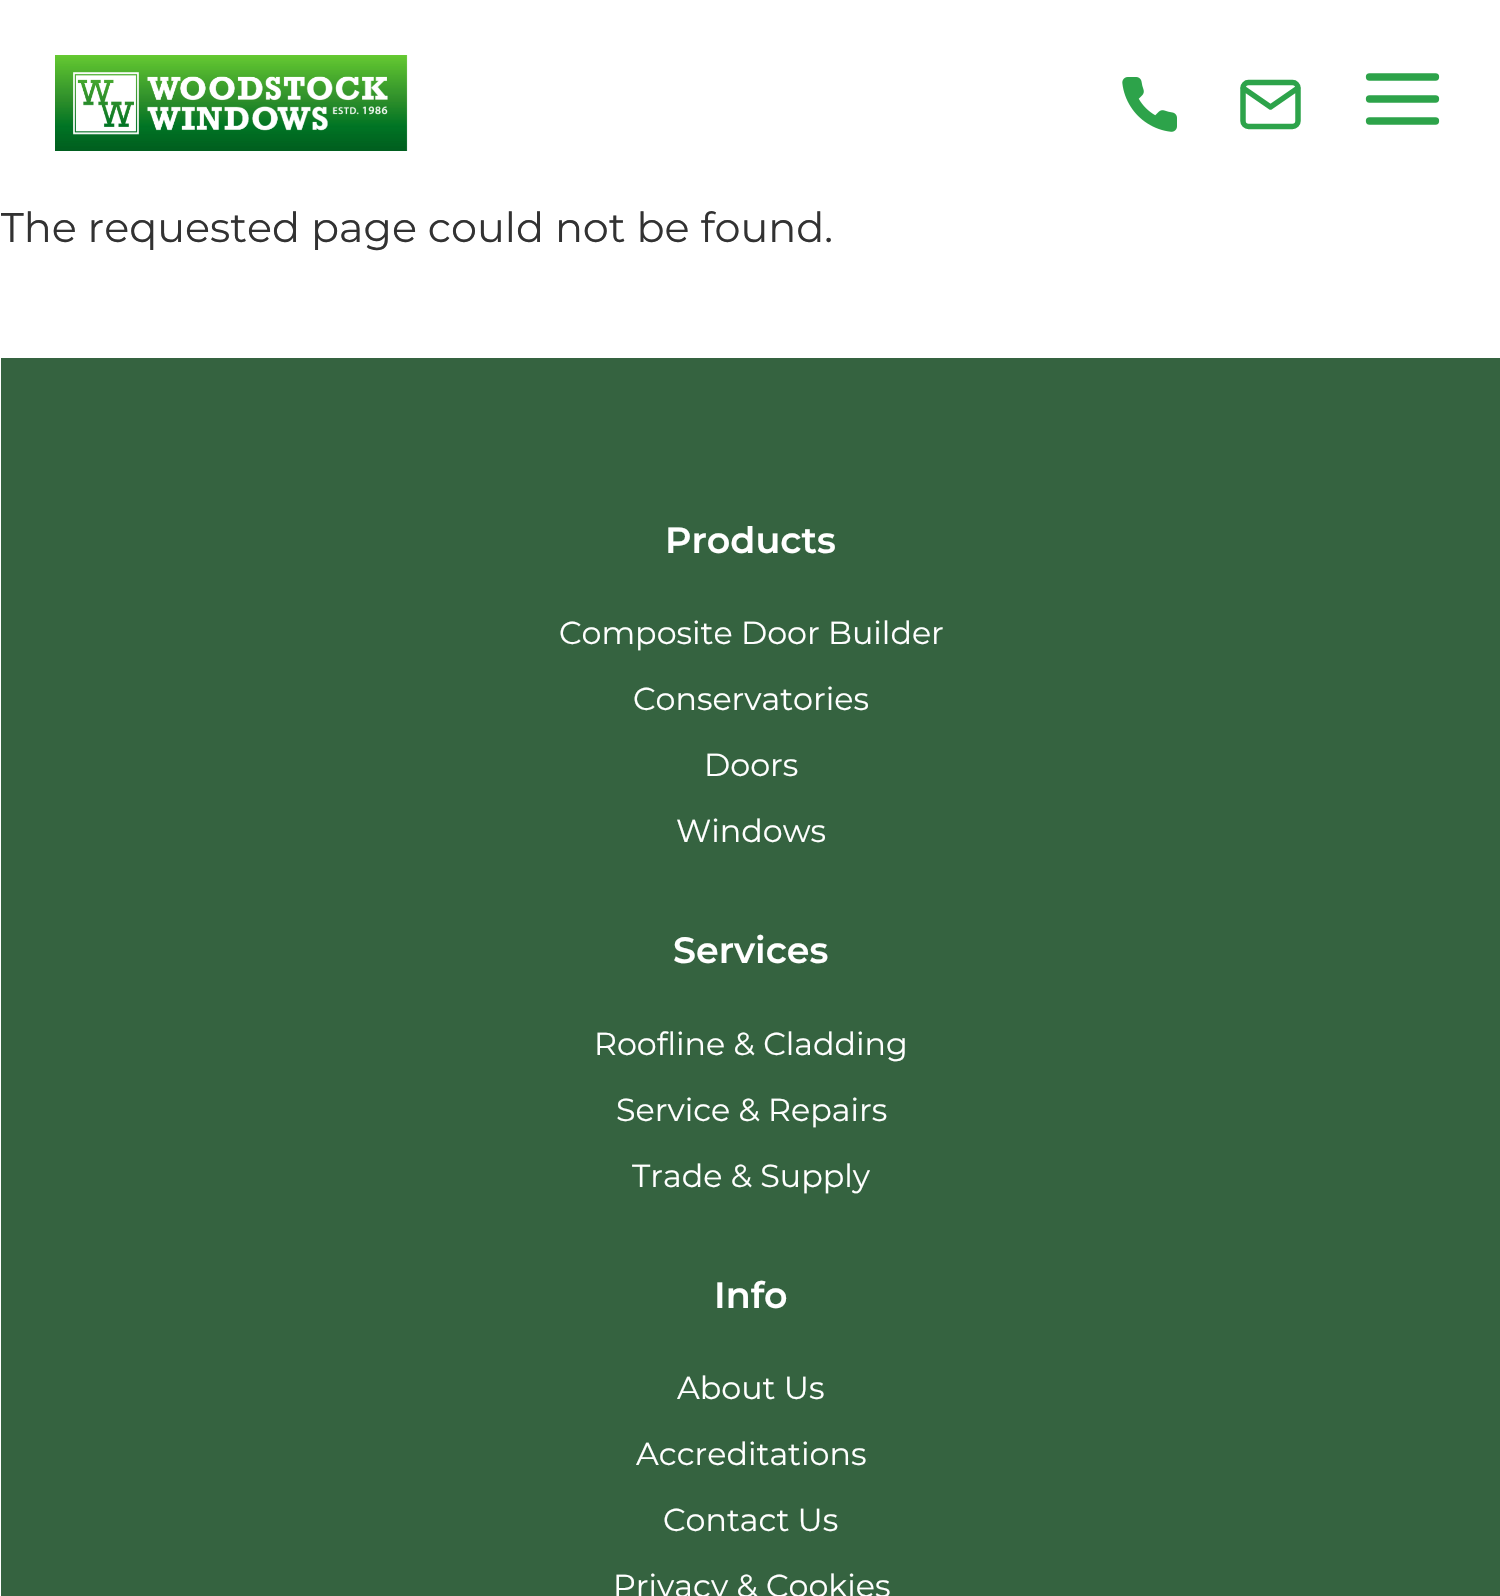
void draw(SkCanvas* canvas) {
	SkPaint fill;
	fill.setAntiAlias(true);
	auto makeFont = [&](const char* family, int weight, float size, bool italic = false) {
		SkFontStyle style(weight, SkFontStyle::kNormal_Width,
			italic ? SkFontStyle::kItalic_Slant : SkFontStyle::kUpright_Slant);
		SkFont result(fontMgr->matchFamilyStyle(family, style), size);
		result.setSubpixel(true);
		return result;
	};
	auto text = [&](const char* s, float x, float y, const SkFont& font) {
		canvas->drawString(s, x, y, font, fill);
	};
	auto box = [&](float l, float t, float r, float b) {
		canvas->drawRect(SkRect::MakeLTRB(l, t, r, b), fill);
	};
	auto picture = [&](const char* path, float l, float t, float r, float b) {
		auto image = SkImages::DeferredFromEncodedData(SkData::MakeFromFileName(path));
		canvas->drawImageRect(image, SkRect::MakeLTRB(l, t, r, b), SkSamplingOptions());
	};
	canvas->clear(0xFFFFFFFF);
	picture("image0.png", 55, 55, 408, 151);
	picture("image1.png", 1122, 77, 1177, 132);
	fill.setStyle(SkPaint::kStroke_Style);
	fill.setStrokeWidth(5.5f);
	fill.setStrokeCap(SkPaint::kRound_Cap);
	fill.setStrokeJoin(SkPaint::kRound_Join);
	fill.setColor(0xFF2DA34A);
	canvas->drawPath(SkPathBuilder().moveTo(1248.5f, 82.5f).lineTo(1292.5f, 82.5f).cubicTo(1295.5f, 82.5f, 1298, 85, 1298, 88).lineTo(1298, 121).cubicTo(1298, 124, 1295.5f, 126.5f, 1292.5f, 126.5f).lineTo(1248.5f, 126.5f).cubicTo(1245.5f, 126.5f, 1243, 124, 1243, 121).lineTo(1243, 88).cubicTo(1243, 85, 1245.5f, 82.5f, 1248.5f, 82.5f).close().moveTo(1298, 88).lineTo(1270.5f, 107).lineTo(1243, 88).detach(), fill);
	fill.setStrokeWidth(7.3f);
	canvas->drawPath(SkPathBuilder().moveTo(1369.5f, 77).lineTo(1435.5f, 77).detach(), fill);
	canvas->drawPath(SkPathBuilder().moveTo(1369.5f, 99).lineTo(1435.5f, 99).detach(), fill);
	canvas->drawPath(SkPathBuilder().moveTo(1369.5f, 121).lineTo(1435.5f, 121).detach(), fill);
	fill.setStyle(SkPaint::kFill_Style);
	fill.setColor(0xFF356340);
	box(1, 358, 1500, 1596);
	auto font1 = makeFont("Montserrat", 400, 41.4f);
	fill.setColor(0xFF323232);
	text("The requested page could not be found.", 0, 242, font1);
	fill.setColor(0xFFFFFFFF);
	box(0, 213, 1, 216);
	auto font2 = makeFont("Montserrat", 600, 36.5f);
	text("Products", 665, 553, font2);
	auto font3 = makeFont("Montserrat", 400, 31.75f);
	text("Composite Door Builder", 559, 644, font3);
	text("Conservatories", 633, 710, font3);
	text("Doors", 704, 776, font3);
	text("Windows", 676, 842, font3);
	text("Services", 673, 963, font2);
	text("Roofline & Cladding", 594, 1055, font3);
	text("Service & Repairs", 616, 1121, font3);
	text("Trade & Supply", 632, 1187, font3);
	text("Info", 714, 1308, font2);
	text("About Us", 677, 1399, font3);
	text("Accreditations", 636, 1465, font3);
	text("Contact Us", 663, 1531, font3);
	text("Privacy & Cookies", 613, 1597, font3);
}
